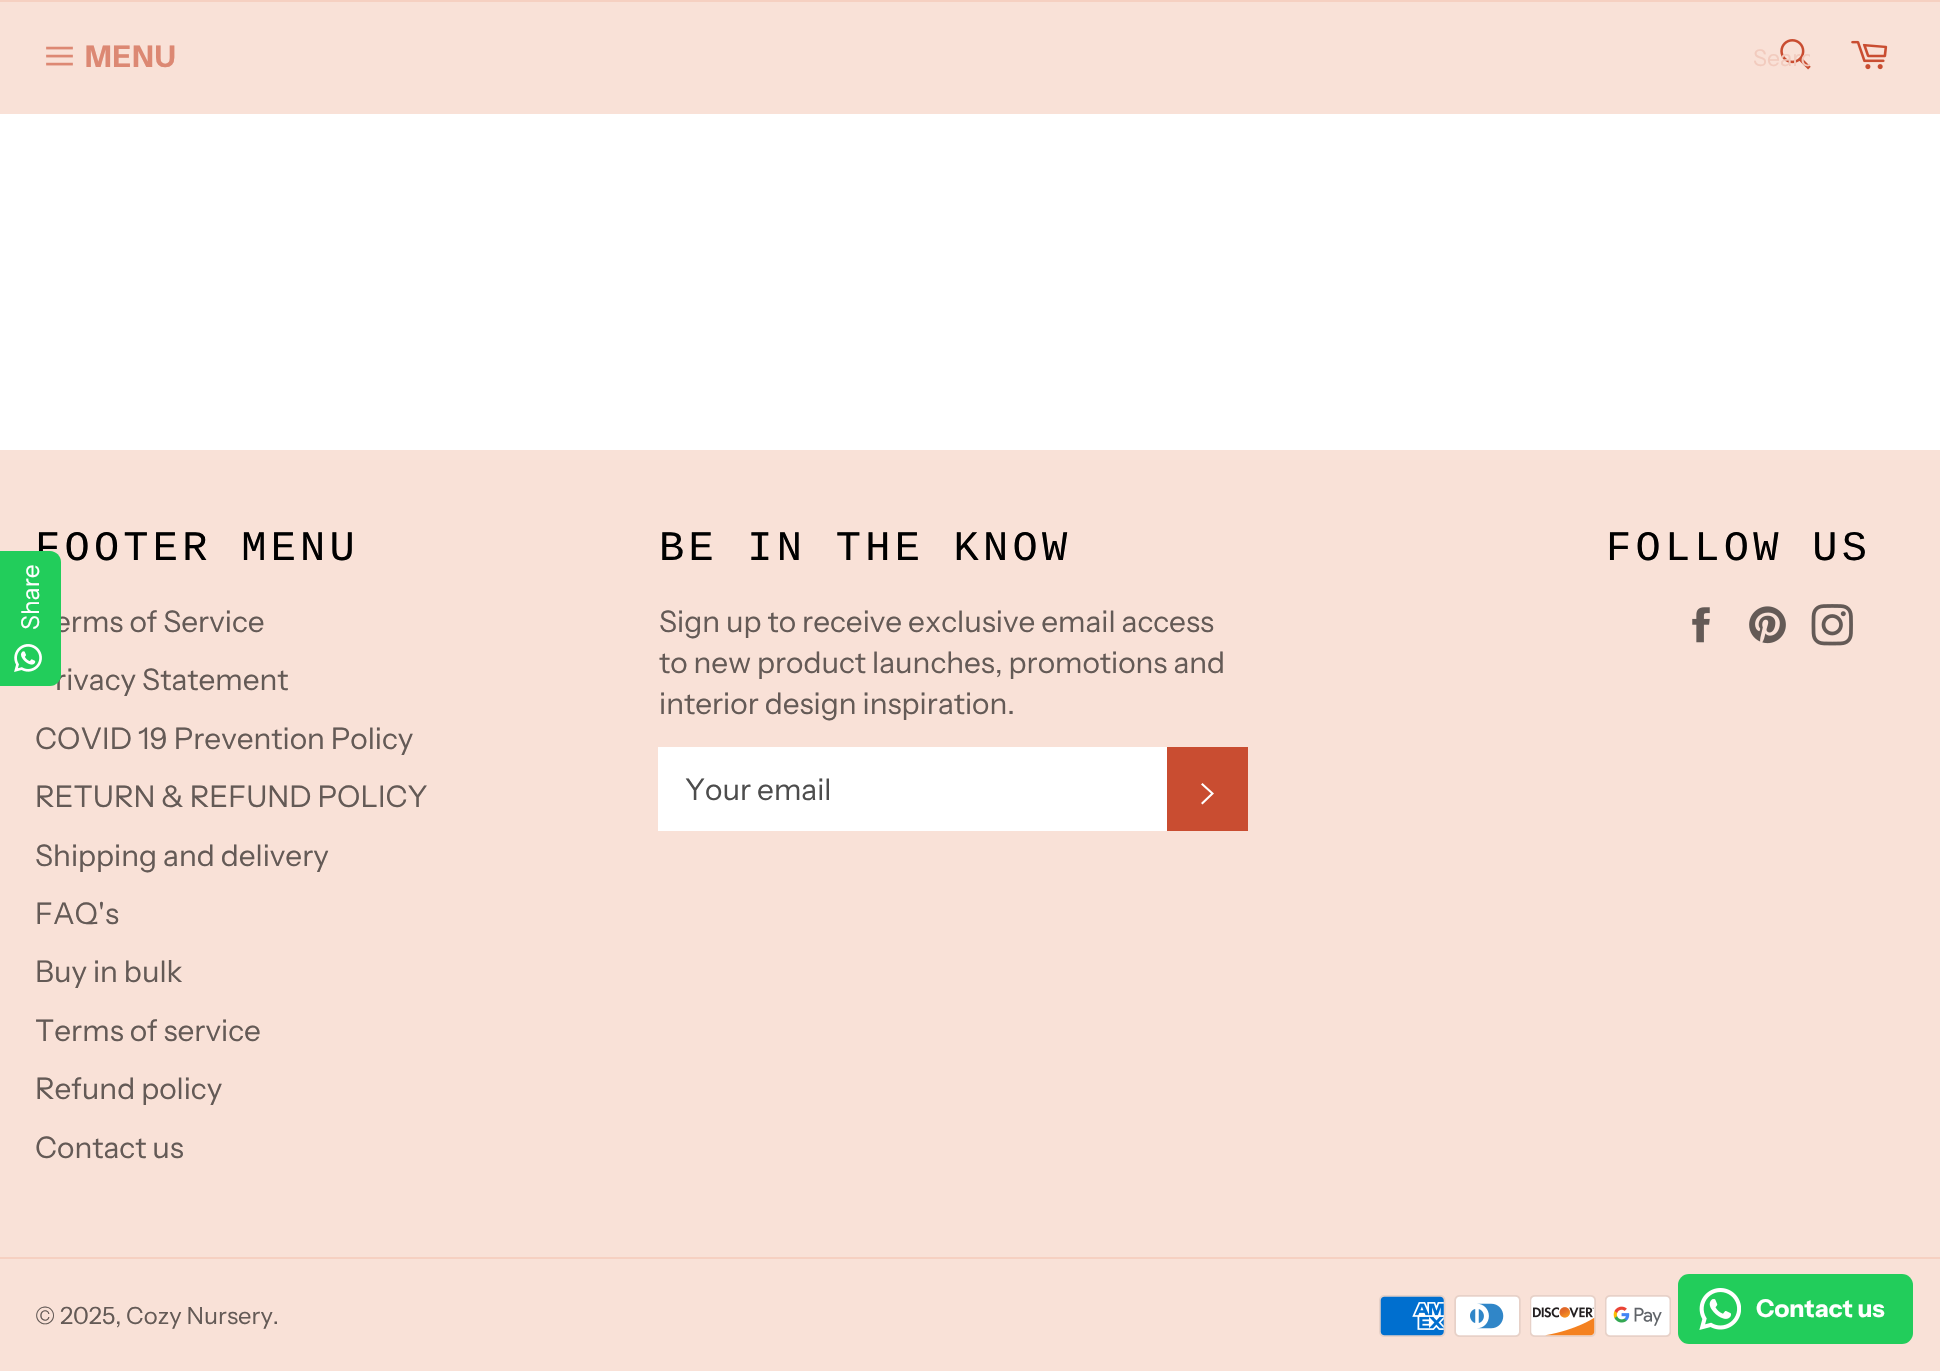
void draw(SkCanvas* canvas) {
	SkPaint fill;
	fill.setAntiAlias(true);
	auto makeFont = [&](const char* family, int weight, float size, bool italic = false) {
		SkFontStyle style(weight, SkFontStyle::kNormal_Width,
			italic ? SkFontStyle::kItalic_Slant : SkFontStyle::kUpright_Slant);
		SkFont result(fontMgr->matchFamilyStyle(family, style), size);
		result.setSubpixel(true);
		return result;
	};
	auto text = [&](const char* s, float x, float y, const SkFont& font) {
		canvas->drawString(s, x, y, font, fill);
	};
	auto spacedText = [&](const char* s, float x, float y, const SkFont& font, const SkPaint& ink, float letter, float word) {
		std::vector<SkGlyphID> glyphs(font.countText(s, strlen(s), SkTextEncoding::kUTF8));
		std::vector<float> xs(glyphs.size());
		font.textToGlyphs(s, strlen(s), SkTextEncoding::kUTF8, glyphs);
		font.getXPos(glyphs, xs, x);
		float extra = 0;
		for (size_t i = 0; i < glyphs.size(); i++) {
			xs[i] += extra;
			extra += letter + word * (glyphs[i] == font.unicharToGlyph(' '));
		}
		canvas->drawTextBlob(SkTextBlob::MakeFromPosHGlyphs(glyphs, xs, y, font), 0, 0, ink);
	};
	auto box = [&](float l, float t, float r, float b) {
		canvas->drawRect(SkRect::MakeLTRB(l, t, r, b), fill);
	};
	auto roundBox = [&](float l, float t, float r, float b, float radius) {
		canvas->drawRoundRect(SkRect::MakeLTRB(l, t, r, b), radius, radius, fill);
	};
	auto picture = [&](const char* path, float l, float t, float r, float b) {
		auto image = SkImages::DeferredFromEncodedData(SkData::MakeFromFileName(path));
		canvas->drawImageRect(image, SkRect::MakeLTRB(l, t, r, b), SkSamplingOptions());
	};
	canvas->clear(0xFFFFFFFF);
	fill.setColor(0xFFF9E1D7);
	box(0, 2, 1940, 114);
	fill.setColor(0xFFF6D0C1);
	box(0, 0, 1940, 2);
	picture("image0.png", 46, 46, 73, 66);
	picture("image1.png", 1780, 39, 1811, 70);
	picture("image2.png", 1851, 40, 1888, 70);
	fill.setColor(0xFFF9E1D7);
	box(0, 450, 1940, 1371);
	fill.setColor(0xFFFFFFFF);
	box(658, 747, 1167, 831);
	fill.setColor(0xFFC94D31);
	box(1167, 747, 1248, 831);
	fill.setColor(0xFFFFFFFF);
	canvas->drawPath(SkPathBuilder().moveTo(1201, 784.5f).lineTo(1202.5f, 783).lineTo(1214, 793.5f).lineTo(1202.5f, 804.5f).lineTo(1201, 803).lineTo(1211, 793.5f).close().detach(), fill);
	picture("image4.png", 1692, 607, 1710, 643);
	picture("image5.png", 1749, 606, 1786, 644);
	picture("image6.png", 1811, 604, 1853, 646);
	fill.setColor(0xFFF6D0C1);
	box(0, 1257, 1940, 1259);
	picture("image7.png", 1379, 1295, 1446, 1337);
	picture("image8.png", 1454, 1295, 1521, 1337);
	picture("image9.png", 1530, 1295, 1596, 1337);
	picture("image10.png", 1605, 1295, 1671, 1337);
	fill.setColor(0xFF22CD5B);
	roundBox(1678, 1274, 1913, 1344, 11);
	picture("image11.png", 1699, 1288, 1741, 1330);
	auto font1 = makeFont("Instrument Sans", 700, 29.75f);
	fill.setColor(0xFFDC8873);
	spacedText("MENU", 85, 67, font1, fill, 1, 0);
	canvas->save();
	canvas->clipRect(SkRect::MakeLTRB(1754, 44, 1810, 72));
	auto font2 = makeFont("Instrument Sans", 400, 23);
	fill.setColor(0xFFF2CBBE);
	text("Searc", 1753, 66, font2);
	canvas->restore();
	auto font3 = makeFont("Liberation Mono", 400, 42);
	fill.setColor(0xFF000000);
	spacedText("FOOTER MENU", 35, 560, font3, fill, 4.25f, 0);
	auto font4 = makeFont("Instrument Sans", 400, 29.75f);
	fill.setColor(0xFF645A56);
	text("erms of Service", 54, 632, font4);
	text("rivacy Statement", 55, 690, font4);
	fill.setColor(0xFF22CD5B);
	canvas->drawPath(SkPathBuilder().moveTo(0, 551).lineTo(50, 551).cubicTo(56, 551, 61, 556, 61, 562).lineTo(61, 675).cubicTo(61, 681, 56, 686, 50, 686).lineTo(0, 686).close().detach(), fill);
	auto font5 = makeFont("Instrument Sans", 400, 24.5f);
	fill.setColor(0xFFFFFFFF);
	canvas->save();
	canvas->rotate(-90, 39, 630);
	text("Share", 39, 630, font5);
	canvas->restore();
	picture("image3.png", 14, 644, 42, 672);
	fill.setColor(0xFF645A56);
	text("COVID 19 Prevention Policy", 35, 749, font4);
	text("RETURN & REFUND POLICY", 35, 807, font4);
	text("Shipping and delivery", 35, 866, font4);
	text("FAQ's", 35, 924, font4);
	text("Buy in bulk", 35, 982, font4);
	text("Terms of service", 35, 1041, font4);
	text("Refund policy", 35, 1099, font4);
	text("Contact us", 35, 1158, font4);
	fill.setColor(0xFF000000);
	spacedText("BE IN THE KNOW", 659, 560, font3, fill, 4.25f, 0);
	fill.setColor(0xFF645A56);
	text("Sign up to receive exclusive email access", 659, 632, font4);
	text("to new product launches, promotions and", 659, 673, font4);
	text("interior design inspiration.", 659, 714, font4);
	fill.setColor(0xFF4D4D4D);
	text("Your email", 685, 800, font4);
	fill.setColor(0xFF000000);
	spacedText("FOLLOW US", 1606, 560, font3, fill, 4.25f, 0);
	auto font6 = makeFont("Instrument Sans", 400, 23.75f);
	fill.setColor(0xFF645A56);
	text("© 2025, Cozy Nursery.", 35, 1324, font6);
	auto font7 = makeFont("Instrument Sans", 700, 24.5f);
	fill.setColor(0xFFFFFFFF);
	text("Contact us", 1756, 1317, font7);
}
